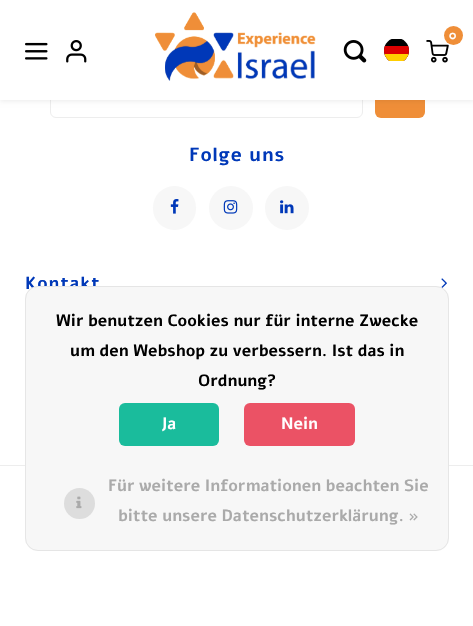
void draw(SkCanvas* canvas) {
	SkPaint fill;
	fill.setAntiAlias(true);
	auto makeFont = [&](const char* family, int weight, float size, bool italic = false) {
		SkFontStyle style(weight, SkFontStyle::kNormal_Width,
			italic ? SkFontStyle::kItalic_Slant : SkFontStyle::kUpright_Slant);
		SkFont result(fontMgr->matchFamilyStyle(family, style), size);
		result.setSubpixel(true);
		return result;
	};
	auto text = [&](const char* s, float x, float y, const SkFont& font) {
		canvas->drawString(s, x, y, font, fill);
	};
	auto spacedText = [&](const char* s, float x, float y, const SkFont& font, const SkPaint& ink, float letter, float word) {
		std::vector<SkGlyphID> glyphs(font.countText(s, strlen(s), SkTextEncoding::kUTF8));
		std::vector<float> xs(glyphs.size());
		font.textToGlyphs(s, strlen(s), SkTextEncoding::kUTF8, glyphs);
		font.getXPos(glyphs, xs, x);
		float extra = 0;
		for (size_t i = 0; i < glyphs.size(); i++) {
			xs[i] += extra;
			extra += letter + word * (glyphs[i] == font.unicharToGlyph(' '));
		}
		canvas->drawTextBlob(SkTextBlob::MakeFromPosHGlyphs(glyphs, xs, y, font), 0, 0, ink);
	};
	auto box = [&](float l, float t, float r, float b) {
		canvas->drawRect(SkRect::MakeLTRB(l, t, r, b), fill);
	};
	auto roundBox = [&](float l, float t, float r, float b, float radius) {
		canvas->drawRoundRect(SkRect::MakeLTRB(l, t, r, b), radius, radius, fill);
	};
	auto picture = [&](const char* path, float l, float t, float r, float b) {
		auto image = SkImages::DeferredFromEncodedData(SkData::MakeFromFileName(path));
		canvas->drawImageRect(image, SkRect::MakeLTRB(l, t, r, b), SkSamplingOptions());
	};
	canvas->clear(0xFFFFFFFF);
	fill.setStyle(SkPaint::kStroke_Style);
	fill.setStrokeWidth(1);
	fill.setColor(0xFFEDEDED);
	canvas->drawRoundRect(SkRect::MakeLTRB(50.5f, 68.5f, 362.5f, 117.5f), 5.5f, 5.5f, fill);
	fill.setStyle(SkPaint::kFill_Style);
	fill.setColor(0xFFEF8E38);
	roundBox(375, 68, 425, 118, 6);
	fill.setColor(0x14000000);
	fill.setMaskFilter(SkMaskFilter::MakeBlur(kNormal_SkBlurStyle, 2.5f));
	canvas->drawRect(SkRect::MakeLTRB(0, 1, 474, 101), fill);
	fill.setMaskFilter(nullptr);
	fill.setColor(0xFFFFFFFF);
	box(0, 0, 473, 100);
	picture("image0.png", 155, 12, 316, 81);
	picture("image1.png", 426, 40, 449, 63);
	fill.setColor(0xFFEF8E38);
	canvas->drawCircle(453.5f, 35.5f, 9.5f, fill);
	picture("image2.png", 343, 40, 367, 63);
	canvas->save();
	canvas->clipPath(SkPathBuilder().moveTo(396.5f, 38).cubicTo(403.5f, 38, 409, 43.5f, 409, 50.5f).cubicTo(409, 57.5f, 403.5f, 63, 396.5f, 63).cubicTo(389.5f, 63, 384, 57.5f, 384, 50.5f).cubicTo(384, 43.5f, 389.5f, 38, 396.5f, 38).close().detach(), true);
	fill.setColor(0xFF000000);
	box(384, 39, 409, 61);
	fill.setColor(0xFFDD0000);
	box(384, 46, 409, 61);
	fill.setColor(0xFFFFCE00);
	box(384, 54, 409, 61);
	canvas->restore();
	picture("image3.png", 25, 42, 48, 60);
	picture("image4.png", 66, 40, 87, 63);
	fill.setColor(0xFFF7F7F7);
	roundBox(153, 186, 196, 230, 21.5f);
	picture("image5.png", 170, 199, 179, 214);
	canvas->drawCircle(231, 208, 22, fill);
	picture("image6.png", 223, 200, 238, 214);
	canvas->drawCircle(287, 208, 22, fill);
	picture("image7.png", 280, 200, 294, 214);
	picture("image8.png", 441, 278, 447, 288);
	fill.setColor(0xFFEDEDED);
	box(0, 465, 473, 466);
	auto font1 = makeFont("Alef", 700, 12);
	fill.setColor(0xFFFFFFFF);
	text("0", 449, 39, font1);
	auto font2 = makeFont("Alef", 700, 19);
	fill.setColor(0xFF0038B8);
	spacedText("Folge uns", 189, 161, font2, fill, 1, 0);
	auto font3 = makeFont("Alef", 700, 17.5f);
	spacedText("Kontakt", 25, 289, font3, fill, 1, 0);
	fill.setColor(0xFFF7F7F7);
	roundBox(25, 286, 449, 551, 13);
	fill.setStyle(SkPaint::kStroke_Style);
	fill.setColor(0x12000000);
	canvas->drawRoundRect(SkRect::MakeLTRB(25.5f, 286.5f, 448.5f, 550.5f), 12.5f, 12.5f, fill);
	auto font4 = makeFont("Alef", 700, 16.25f);
	fill.setStyle(SkPaint::kFill_Style);
	fill.setColor(0xFF000000);
	text("Wir benutzen Cookies nur für interne Zwecke", 56, 326, font4);
	text("um den Webshop zu verbessern. Ist das in", 70, 356, font4);
	text("Ordnung?", 198, 386, font4);
	fill.setColor(0xFF1ABC9C);
	roundBox(119, 403, 219, 446, 6);
	fill.setColor(0xFFFFFFFF);
	text("Ja", 161, 429, font4);
	fill.setColor(0xFFEB5265);
	roundBox(244, 403, 355, 446, 6);
	fill.setColor(0xFFFFFFFF);
	text("Nein", 281, 429, font4);
	fill.setColor(0xFFAAAAAA);
	text("Für weitere Informationen beachten Sie", 108, 491, font4);
	fill.setColor(0xFFDDDDDD);
	canvas->drawCircle(79.5f, 503.5f, 15.5f, fill);
	picture("image9.png", 76, 496, 82, 509);
	fill.setColor(0xFFAAAAAA);
	text("bitte unsere Datenschutzerklärung. »", 118, 521, font4);
}
